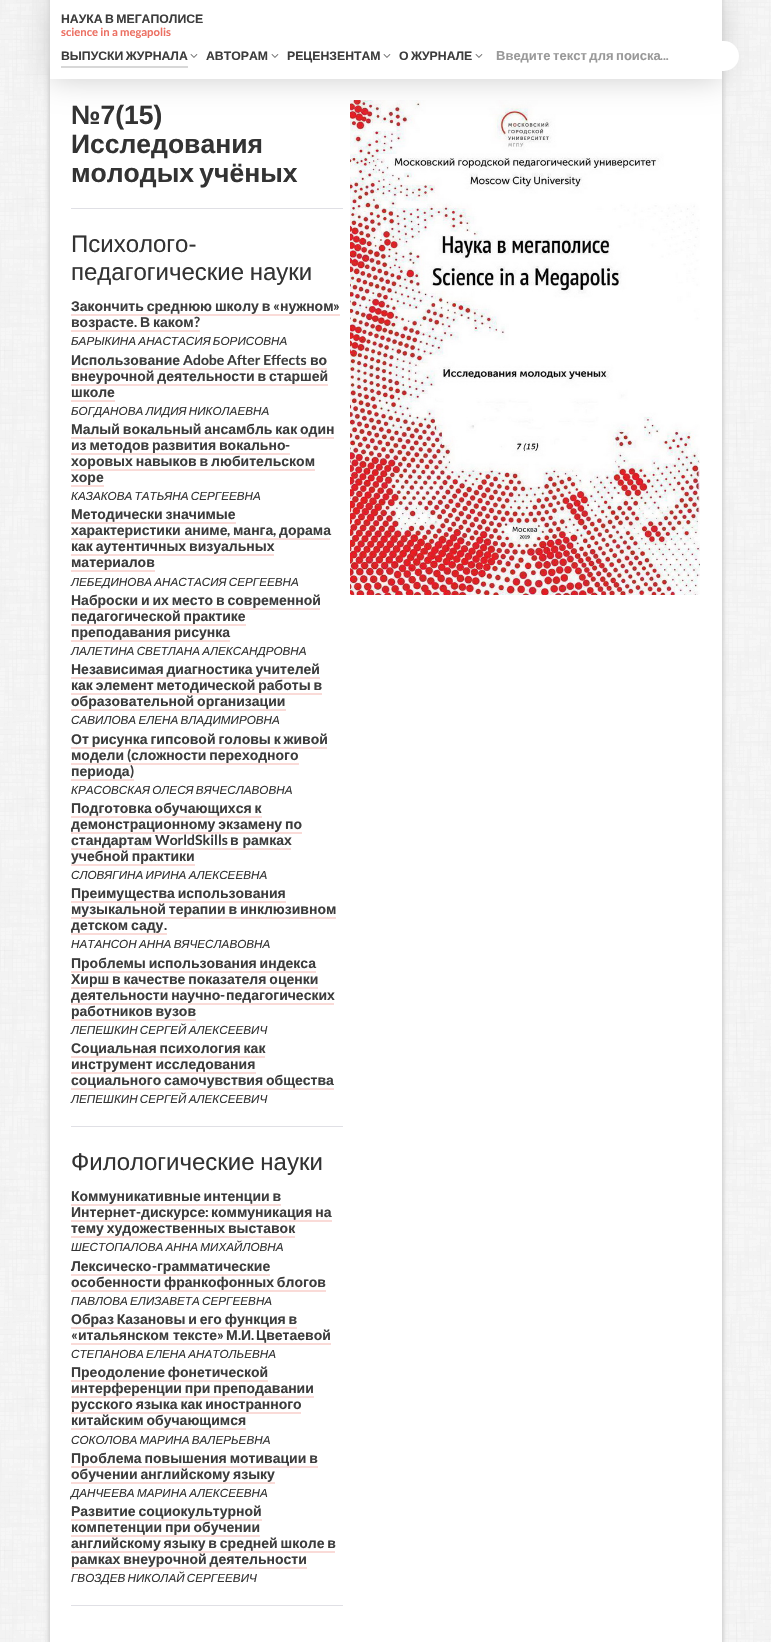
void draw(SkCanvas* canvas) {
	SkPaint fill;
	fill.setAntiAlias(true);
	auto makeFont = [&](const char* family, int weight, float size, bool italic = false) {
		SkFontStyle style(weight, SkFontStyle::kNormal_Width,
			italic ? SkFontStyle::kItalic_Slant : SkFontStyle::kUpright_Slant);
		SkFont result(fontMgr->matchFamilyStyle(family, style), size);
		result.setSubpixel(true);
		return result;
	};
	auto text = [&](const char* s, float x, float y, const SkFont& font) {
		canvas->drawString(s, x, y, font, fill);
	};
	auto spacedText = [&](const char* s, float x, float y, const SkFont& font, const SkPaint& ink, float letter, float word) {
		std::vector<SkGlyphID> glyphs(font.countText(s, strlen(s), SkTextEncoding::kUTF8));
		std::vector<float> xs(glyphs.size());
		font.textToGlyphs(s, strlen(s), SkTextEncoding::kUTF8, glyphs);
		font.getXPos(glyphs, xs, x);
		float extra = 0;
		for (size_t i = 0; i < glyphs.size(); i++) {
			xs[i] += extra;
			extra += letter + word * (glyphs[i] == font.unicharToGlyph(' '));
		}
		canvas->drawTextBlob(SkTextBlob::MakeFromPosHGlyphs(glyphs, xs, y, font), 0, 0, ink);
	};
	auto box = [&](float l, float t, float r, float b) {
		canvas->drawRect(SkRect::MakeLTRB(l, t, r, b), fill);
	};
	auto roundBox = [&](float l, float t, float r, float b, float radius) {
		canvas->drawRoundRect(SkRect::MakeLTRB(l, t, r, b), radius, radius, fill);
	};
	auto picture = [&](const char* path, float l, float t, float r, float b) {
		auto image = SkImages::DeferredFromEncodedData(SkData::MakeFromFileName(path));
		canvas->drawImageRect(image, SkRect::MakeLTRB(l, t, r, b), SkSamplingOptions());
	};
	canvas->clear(0xFFFFFFFF);
	picture("image0.png", 0, 0, 771, 1642);
	fill.setColor(0xFFCCCCCC);
	fill.setMaskFilter(SkMaskFilter::MakeBlur(kNormal_SkBlurStyle, 2.5f));
	canvas->drawRect(SkRect::MakeLTRB(50, -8, 722, 25), fill);
	fill.setMaskFilter(nullptr);
	fill.setMaskFilter(SkMaskFilter::MakeBlur(kNormal_SkBlurStyle, 2.5f));
	canvas->drawRect(SkRect::MakeLTRB(50, 25, 722, 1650), fill);
	fill.setMaskFilter(nullptr);
	fill.setColor(0xFFFFFFFF);
	box(50, 79, 722, 1642);
	canvas->save();
	canvas->clipPath(SkPathBuilder(SkPathFillType::kEvenOdd).moveTo(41, 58).lineTo(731, 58).lineTo(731, 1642).lineTo(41, 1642).close().moveTo(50, 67).lineTo(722, 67).lineTo(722, 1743).lineTo(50, 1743).close().detach(), true);
	fill.setColor(0xFFCCCCCC);
	fill.setMaskFilter(SkMaskFilter::MakeBlur(kNormal_SkBlurStyle, 2.5f));
	canvas->drawRect(SkRect::MakeLTRB(50, 67, 722, 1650), fill);
	fill.setMaskFilter(nullptr);
	canvas->restore();
	picture("image2.png", 350, 100, 700, 595);
	fill.setMaskFilter(SkMaskFilter::MakeBlur(kNormal_SkBlurStyle, 15));
	canvas->drawRect(SkRect::MakeLTRB(50, 0, 722, 79), fill);
	fill.setMaskFilter(nullptr);
	fill.setColor(0xFFFFFFFF);
	box(50, 0, 722, 79);
	fill.setColor(0xFFD8D8D8);
	box(61, 66, 188, 68);
	picture("image1.png", 190, 54, 198, 58);
	picture("image1.png", 271, 54, 279, 58);
	picture("image1.png", 383, 54, 391, 58);
	picture("image1.png", 475, 54, 483, 58);
	fill.setColor(0xFFFFFFFF);
	roundBox(491, 41, 739, 71, 15);
	fill.setColor(0xFFE0E0E5);
	box(71, 208, 343, 209);
	fill.setColor(0xFFFADBD8);
	box(71, 314, 340, 316);
	box(71, 330, 200, 332);
	box(71, 368, 327, 370);
	box(71, 384, 328, 386);
	box(71, 400, 115, 402);
	box(71, 437, 334, 439);
	box(71, 453, 290, 455);
	box(71, 469, 315, 471);
	box(71, 485, 104, 487);
	box(71, 522, 236, 524);
	box(71, 538, 330, 540);
	box(71, 554, 274, 556);
	box(71, 570, 155, 572);
	box(71, 608, 320, 610);
	box(71, 624, 246, 626);
	box(71, 640, 230, 642);
	box(71, 677, 320, 679);
	box(71, 693, 322, 695);
	box(71, 709, 286, 711);
	box(71, 747, 327, 749);
	box(71, 763, 299, 765);
	box(71, 779, 134, 781);
	box(71, 816, 262, 818);
	box(71, 832, 302, 834);
	box(71, 848, 291, 850);
	box(71, 864, 195, 866);
	box(71, 901, 286, 903);
	box(71, 917, 336, 919);
	box(71, 933, 167, 935);
	box(71, 971, 316, 973);
	box(71, 987, 318, 989);
	box(71, 1003, 334, 1005);
	box(71, 1019, 196, 1021);
	box(71, 1056, 265, 1058);
	box(71, 1072, 256, 1074);
	box(71, 1088, 334, 1090);
	fill.setColor(0xFFE0E0E5);
	box(71, 1126, 343, 1127);
	fill.setColor(0xFFFADBD8);
	box(71, 1204, 281, 1206);
	box(71, 1220, 332, 1222);
	box(71, 1236, 295, 1238);
	box(71, 1274, 270, 1276);
	box(71, 1290, 326, 1292);
	box(71, 1327, 297, 1329);
	box(71, 1343, 331, 1345);
	box(71, 1380, 268, 1382);
	box(71, 1396, 314, 1398);
	box(71, 1412, 301, 1414);
	box(71, 1428, 246, 1430);
	box(71, 1466, 318, 1468);
	box(71, 1482, 275, 1484);
	box(71, 1519, 262, 1521);
	box(71, 1535, 260, 1537);
	box(71, 1551, 335, 1553);
	box(71, 1567, 307, 1569);
	fill.setColor(0xFFE0E0E5);
	box(71, 1605, 343, 1606);
	auto font1 = makeFont("Liberation Sans", 700, 12.25f);
	fill.setColor(0xFF3D3D3D);
	spacedText("НАУКА В МЕГАПОЛИСЕ", 61, 23, font1, fill, 0, -1);
	auto font2 = makeFont("Lato", 700, 11.25f);
	fill.setColor(0xFFEC7063);
	text("science in a megapolis", 61, 36, font2);
	fill.setColor(0xFF3D3D3D);
	spacedText("ВЫПУСКИ ЖУРНАЛА", 61, 60, font1, fill, 0, -1);
	text("АВТОРАМ", 206, 60, font1);
	text("РЕЦЕНЗЕНТАМ", 287, 60, font1);
	spacedText("О ЖУРНАЛЕ", 399, 60, font1, fill, 0, -1);
	auto font3 = makeFont("Liberation Sans", 700, 13);
	fill.setColor(0xFF999999);
	spacedText("Введите текст для поиска", 496, 60, font3, fill, 0, -1);
	auto font4 = makeFont("Lato", 700, 13);
	text("...", 660, 60, font4);
	auto font5 = makeFont("Liberation Sans", 700, 26.5f);
	fill.setColor(0xFF333333);
	text("№7(15)", 71, 124, font5);
	text("Исследования", 71, 153, font5);
	spacedText("молодых учёных", 71, 182, font5, fill, 0, -2);
	auto font6 = makeFont("Liberation Sans", 400, 24);
	text("Психолого-", 71, 252, font6);
	spacedText("педагогические науки", 71, 280, font6, fill, 0, -1);
	auto font7 = makeFont("Liberation Sans", 700, 14);
	fill.setColor(0xFF3D3D3D);
	spacedText("Закончить среднюю школу в", 71, 311, font7, fill, 0, -1);
	auto font8 = makeFont("Lato", 700, 14);
	text("«", 273, 311, font8);
	text("нужном", 280, 311, font7);
	text("»", 333, 311, font8);
	text("возрасте", 71, 327, font7);
	text(".", 134, 327, font8);
	spacedText("В каком", 140, 327, font7, fill, 0, -1);
	text("?", 194, 327, font8);
	auto font9 = makeFont("Liberation Sans", 400, 11.7f, true);
	fill.setColor(0xFF333333);
	spacedText("БАРЫКИНА АНАСТАСИЯ БОРИСОВНА", 71, 345, font9, fill, 0, -1);
	fill.setColor(0xFF3D3D3D);
	text("Использование", 71, 365, font7);
	text("Adobe After Effects", 183, 365, font8);
	text("во", 310, 365, font7);
	spacedText("внеурочной деятельности в старшей", 71, 381, font7, fill, 0, -1);
	text("школе", 71, 397, font7);
	fill.setColor(0xFF333333);
	spacedText("БОГДАНОВА ЛИДИЯ НИКОЛАЕВНА", 71, 415, font9, fill, 0, -1);
	fill.setColor(0xFF3D3D3D);
	spacedText("Малый вокальный ансамбль как один", 71, 434, font7, fill, 0, -1);
	spacedText("из методов развития вокально", 71, 450, font7, fill, 0, -1);
	text("-", 285, 450, font8);
	spacedText("хоровых навыков в любительском", 71, 466, font7, fill, 0, -1);
	text("хоре", 71, 482, font7);
	fill.setColor(0xFF333333);
	spacedText("КАЗАКОВА ТАТЬЯНА СЕРГЕЕВНА", 71, 500, font9, fill, 0, -1);
	fill.setColor(0xFF3D3D3D);
	spacedText("Методически значимые", 71, 519, font7, fill, 0, -1);
	text("характеристики аниме", 71, 535, font7);
	text(",", 227, 535, font8);
	text("манга", 233, 535, font7);
	text(",", 273, 535, font8);
	text("дорама", 279, 535, font7);
	spacedText("как аутентичных визуальных", 71, 551, font7, fill, 0, -1);
	text("материалов", 71, 567, font7);
	fill.setColor(0xFF333333);
	spacedText("ЛЕБЕДИНОВА АНАСТАСИЯ СЕРГЕЕВНА", 71, 586, font9, fill, 0, -1);
	fill.setColor(0xFF3D3D3D);
	spacedText("Наброски и их место в современной", 71, 605, font7, fill, 0, -1);
	spacedText("педагогической практике", 71, 621, font7, fill, 0, -1);
	spacedText("преподавания рисунка", 71, 637, font7, fill, 0, -1);
	fill.setColor(0xFF333333);
	spacedText("ЛАЛЕТИНА СВЕТЛАНА АЛЕКСАНДРОВНА", 71, 655, font9, fill, 0, -1);
	fill.setColor(0xFF3D3D3D);
	spacedText("Независимая диагностика учителей", 71, 674, font7, fill, 0, -1);
	spacedText("как элемент методической работы в", 71, 690, font7, fill, 0, -1);
	spacedText("образовательной организации", 71, 706, font7, fill, 0, -1);
	fill.setColor(0xFF333333);
	spacedText("САВИЛОВА ЕЛЕНА ВЛАДИМИРОВНА", 71, 724, font9, fill, 0, -1);
	fill.setColor(0xFF3D3D3D);
	spacedText("От рисунка гипсовой головы к живой", 71, 744, font7, fill, 0, -1);
	text("модели", 71, 760, font7);
	text("(", 127, 760, font8);
	spacedText("сложности переходного", 131, 760, font7, fill, 0, -1);
	text("периода", 71, 776, font7);
	text(")", 130, 776, font8);
	fill.setColor(0xFF333333);
	spacedText("КРАСОВСКАЯ ОЛЕСЯ ВЯЧЕСЛАВОВНА", 71, 794, font9, fill, 0, -1);
	fill.setColor(0xFF3D3D3D);
	spacedText("Подготовка обучающихся к", 71, 813, font7, fill, 0, -1);
	spacedText("демонстрационному экзамену по", 71, 829, font7, fill, 0, -1);
	text("стандартам", 71, 845, font7);
	text("WorldSkills", 155, 845, font8);
	text("в рамках", 230, 845, font7);
	spacedText("учебной практики", 71, 861, font7, fill, 0, -1);
	fill.setColor(0xFF333333);
	spacedText("СЛОВЯГИНА ИРИНА АЛЕКСЕЕВНА", 71, 879, font9, fill, 0, -1);
	fill.setColor(0xFF3D3D3D);
	spacedText("Преимущества использования", 71, 898, font7, fill, 0, -1);
	spacedText("музыкальной терапии в инклюзивном", 71, 914, font7, fill, 0, -1);
	spacedText("детском саду", 71, 930, font7, fill, 0, -1);
	text(".", 164, 930, font8);
	fill.setColor(0xFF333333);
	spacedText("НАТАНСОН АННА ВЯЧЕСЛАВОВНА", 71, 948, font9, fill, 0, -1);
	fill.setColor(0xFF3D3D3D);
	spacedText("Проблемы использования индекса", 71, 968, font7, fill, 0, -1);
	spacedText("Хирш в качестве показателя оценки", 71, 984, font7, fill, 0, -1);
	spacedText("деятельности научно", 71, 1000, font7, fill, 0, -1);
	text("-", 220, 1000, font8);
	text("педагогических", 226, 1000, font7);
	spacedText("работников вузов", 71, 1016, font7, fill, 0, -1);
	fill.setColor(0xFF333333);
	spacedText("ЛЕПЕШКИН СЕРГЕЙ АЛЕКСЕЕВИЧ", 71, 1034, font9, fill, 0, -1);
	fill.setColor(0xFF3D3D3D);
	spacedText("Социальная психология как", 71, 1053, font7, fill, 0, -1);
	spacedText("инструмент исследования", 71, 1069, font7, fill, 0, -1);
	spacedText("социального самочувствия общества", 71, 1085, font7, fill, 0, -1);
	fill.setColor(0xFF333333);
	spacedText("ЛЕПЕШКИН СЕРГЕЙ АЛЕКСЕЕВИЧ", 71, 1103, font9, fill, 0, -1);
	spacedText("Филологические науки", 71, 1170, font6, fill, 0, -1);
	fill.setColor(0xFF3D3D3D);
	spacedText("Коммуникативные интенции в", 71, 1201, font7, fill, 0, -1);
	text("Интернет", 71, 1217, font7);
	text("-", 136, 1217, font8);
	text("дискурсе", 141, 1217, font7);
	text(":", 205, 1217, font8);
	spacedText("коммуникация на", 211, 1217, font7, fill, 0, -1);
	spacedText("тему художественных выставок", 71, 1233, font7, fill, 0, -1);
	fill.setColor(0xFF333333);
	spacedText("ШЕСТОПАЛОВА АННА МИХАЙЛОВНА", 71, 1251, font9, fill, 0, -1);
	fill.setColor(0xFF3D3D3D);
	text("Лексическо", 71, 1271, font7);
	text("-", 152, 1271, font8);
	text("грамматические", 157, 1271, font7);
	spacedText("особенности франкофонных блогов", 71, 1287, font7, fill, 0, -1);
	fill.setColor(0xFF333333);
	spacedText("ПАВЛОВА ЕЛИЗАВЕТА СЕРГЕЕВНА", 71, 1305, font9, fill, 0, -1);
	fill.setColor(0xFF3D3D3D);
	spacedText("Образ Казановы и его функция в", 71, 1324, font7, fill, 0, -1);
	text("«", 71, 1340, font8);
	text("итальянском тексте", 78, 1340, font7);
	text("»", 217, 1340, font8);
	text("М", 226, 1340, font7);
	text(".", 238, 1340, font8);
	text("И", 241, 1340, font7);
	text(".", 251, 1340, font8);
	text("Цветаевой", 256, 1340, font7);
	fill.setColor(0xFF333333);
	spacedText("СТЕПАНОВА ЕЛЕНА АНАТОЛЬЕВНА", 71, 1358, font9, fill, 0, -1);
	fill.setColor(0xFF3D3D3D);
	spacedText("Преодоление фонетической", 71, 1377, font7, fill, 0, -1);
	spacedText("интерференции при преподавании", 71, 1393, font7, fill, 0, -1);
	spacedText("русского языка как иностранного", 71, 1409, font7, fill, 0, -1);
	spacedText("китайским обучающимся", 71, 1425, font7, fill, 0, -1);
	fill.setColor(0xFF333333);
	spacedText("СОКОЛОВА МАРИНА ВАЛЕРЬЕВНА", 71, 1444, font9, fill, 0, -1);
	fill.setColor(0xFF3D3D3D);
	spacedText("Проблема повышения мотивации в", 71, 1463, font7, fill, 0, -1);
	spacedText("обучении английскому языку", 71, 1479, font7, fill, 0, -1);
	fill.setColor(0xFF333333);
	text("ДАНЧЕЕВА", 71, 1497, font9);
	spacedText("МАРИНА АЛЕКСЕЕВНА", 137, 1497, font9, fill, 0, -1);
	fill.setColor(0xFF3D3D3D);
	spacedText("Развитие социокультурной", 71, 1516, font7, fill, 0, -1);
	spacedText("компетенции при обучении", 71, 1532, font7, fill, 0, -1);
	spacedText("английскому языку в средней школе в", 71, 1548, font7, fill, 0, -1);
	spacedText("рамках внеурочной деятельности", 71, 1564, font7, fill, 0, -1);
	fill.setColor(0xFF333333);
	spacedText("ГВОЗДЕВ НИКОЛАЙ СЕРГЕЕВИЧ", 71, 1582, font9, fill, 0, -1);
}
